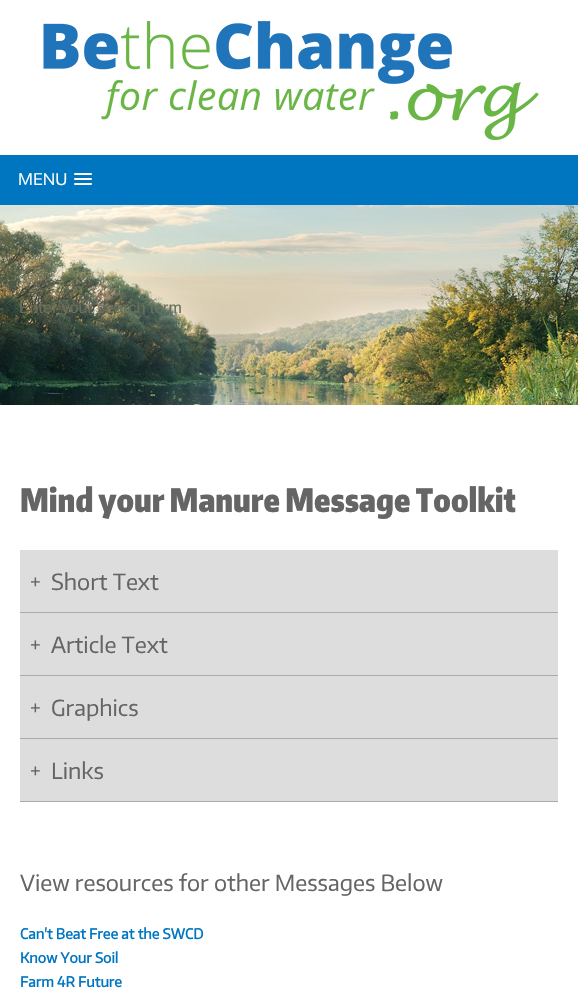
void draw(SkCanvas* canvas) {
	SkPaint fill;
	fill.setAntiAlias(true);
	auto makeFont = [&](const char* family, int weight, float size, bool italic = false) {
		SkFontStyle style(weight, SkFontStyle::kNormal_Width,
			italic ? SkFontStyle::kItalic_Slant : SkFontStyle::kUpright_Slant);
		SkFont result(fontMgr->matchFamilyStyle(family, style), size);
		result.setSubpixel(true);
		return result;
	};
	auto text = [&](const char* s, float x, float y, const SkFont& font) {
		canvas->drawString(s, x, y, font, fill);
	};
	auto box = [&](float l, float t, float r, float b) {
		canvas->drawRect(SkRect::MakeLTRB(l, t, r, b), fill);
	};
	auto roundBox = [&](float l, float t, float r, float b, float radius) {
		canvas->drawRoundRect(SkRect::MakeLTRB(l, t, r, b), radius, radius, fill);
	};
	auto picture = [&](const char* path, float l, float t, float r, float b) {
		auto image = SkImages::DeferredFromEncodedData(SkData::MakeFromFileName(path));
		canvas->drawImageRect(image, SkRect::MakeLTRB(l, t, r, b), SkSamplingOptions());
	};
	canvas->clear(0xFFFFFFFF);
	picture("image0.png", 43, 21, 539, 140);
	fill.setColor(0xFF0076C0);
	box(0, 155, 578, 205);
	fill.setColor(0xFFFFFFFF);
	roundBox(74, 173, 92, 175, 1);
	roundBox(74, 178, 92, 180, 1);
	roundBox(74, 183, 92, 185, 1);
	picture("image1.png", 0, 205, 578, 405);
	fill.setColor(0xFFDDDDDD);
	box(20, 550, 558, 612);
	fill.setColor(0xFFAAAAAA);
	box(20, 612, 558, 613);
	fill.setColor(0xFFDDDDDD);
	box(20, 613, 558, 675);
	fill.setColor(0xFFAAAAAA);
	box(20, 675, 558, 676);
	fill.setColor(0xFFDDDDDD);
	box(20, 676, 558, 738);
	fill.setColor(0xFFAAAAAA);
	box(20, 738, 558, 739);
	fill.setColor(0xFFDDDDDD);
	box(20, 739, 558, 801);
	fill.setColor(0xFFAAAAAA);
	box(20, 801, 558, 802);
	auto font1 = makeFont("Encode Sans", 400, 16);
	fill.setColor(0xFFFFFFFF);
	text("MENU", 18, 185, font1);
	auto font2 = makeFont("Liberation Sans", 400, 16);
	fill.setColor(0xFF696F5C);
	text("Enter your search term", 19, 313, font2);
	auto font3 = makeFont("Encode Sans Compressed", 900, 32);
	fill.setColor(0xFF656565);
	text("Mind your Manure Message Toolkit", 20, 512, font3);
	auto font4 = makeFont("Encode Sans", 400, 22);
	text("+", 30, 590, font4);
	text("Short Text", 51, 590, font4);
	text("+", 30, 653, font4);
	text("Article Text", 51, 653, font4);
	text("+", 30, 716, font4);
	text("Graphics", 51, 716, font4);
	text("+", 30, 779, font4);
	text("Links", 51, 779, font4);
	text("View resources for other Messages Below", 20, 891, font4);
	auto font5 = makeFont("Encode Sans", 700, 14);
	fill.setColor(0xFF0076C0);
	text("Can't Beat Free at the SWCD", 20, 939, font5);
	text("Know Your Soil", 20, 963, font5);
	text("Farm 4R Future", 20, 987, font5);
}
